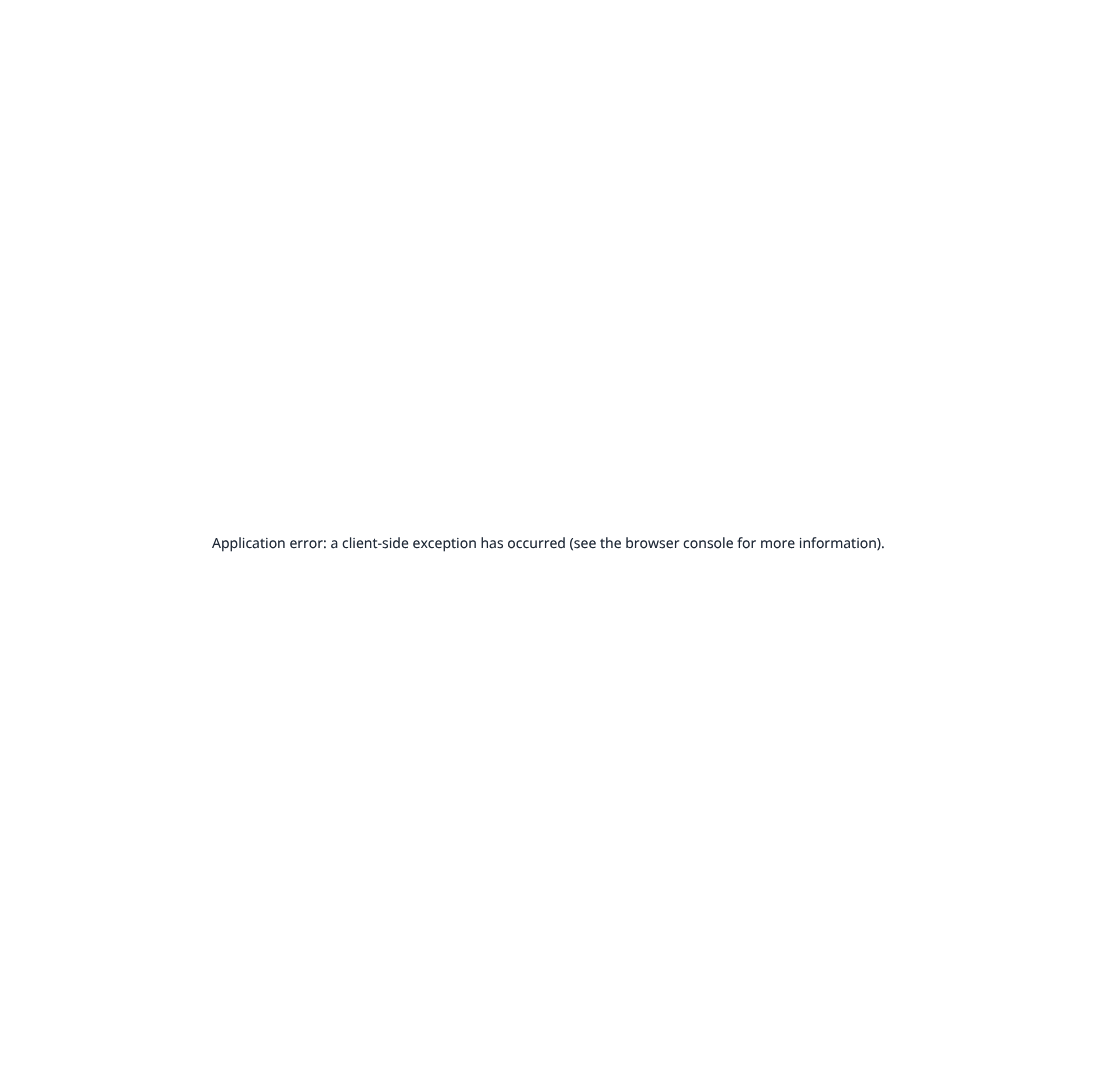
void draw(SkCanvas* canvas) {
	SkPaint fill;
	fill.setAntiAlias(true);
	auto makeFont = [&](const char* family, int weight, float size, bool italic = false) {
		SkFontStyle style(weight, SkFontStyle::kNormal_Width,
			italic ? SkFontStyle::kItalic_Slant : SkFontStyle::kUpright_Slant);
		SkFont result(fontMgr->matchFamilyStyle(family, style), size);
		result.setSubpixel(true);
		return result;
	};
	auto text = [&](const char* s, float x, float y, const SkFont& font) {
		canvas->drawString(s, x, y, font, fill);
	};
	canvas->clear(0xFFFFFFFF);
	auto font1 = makeFont("Noto Sans", 400, 14);
	fill.setColor(0xFF1F2937);
	text("Application error: a client-side exception has occurred (see the browser console for more information).", 212, 548, font1);
}
